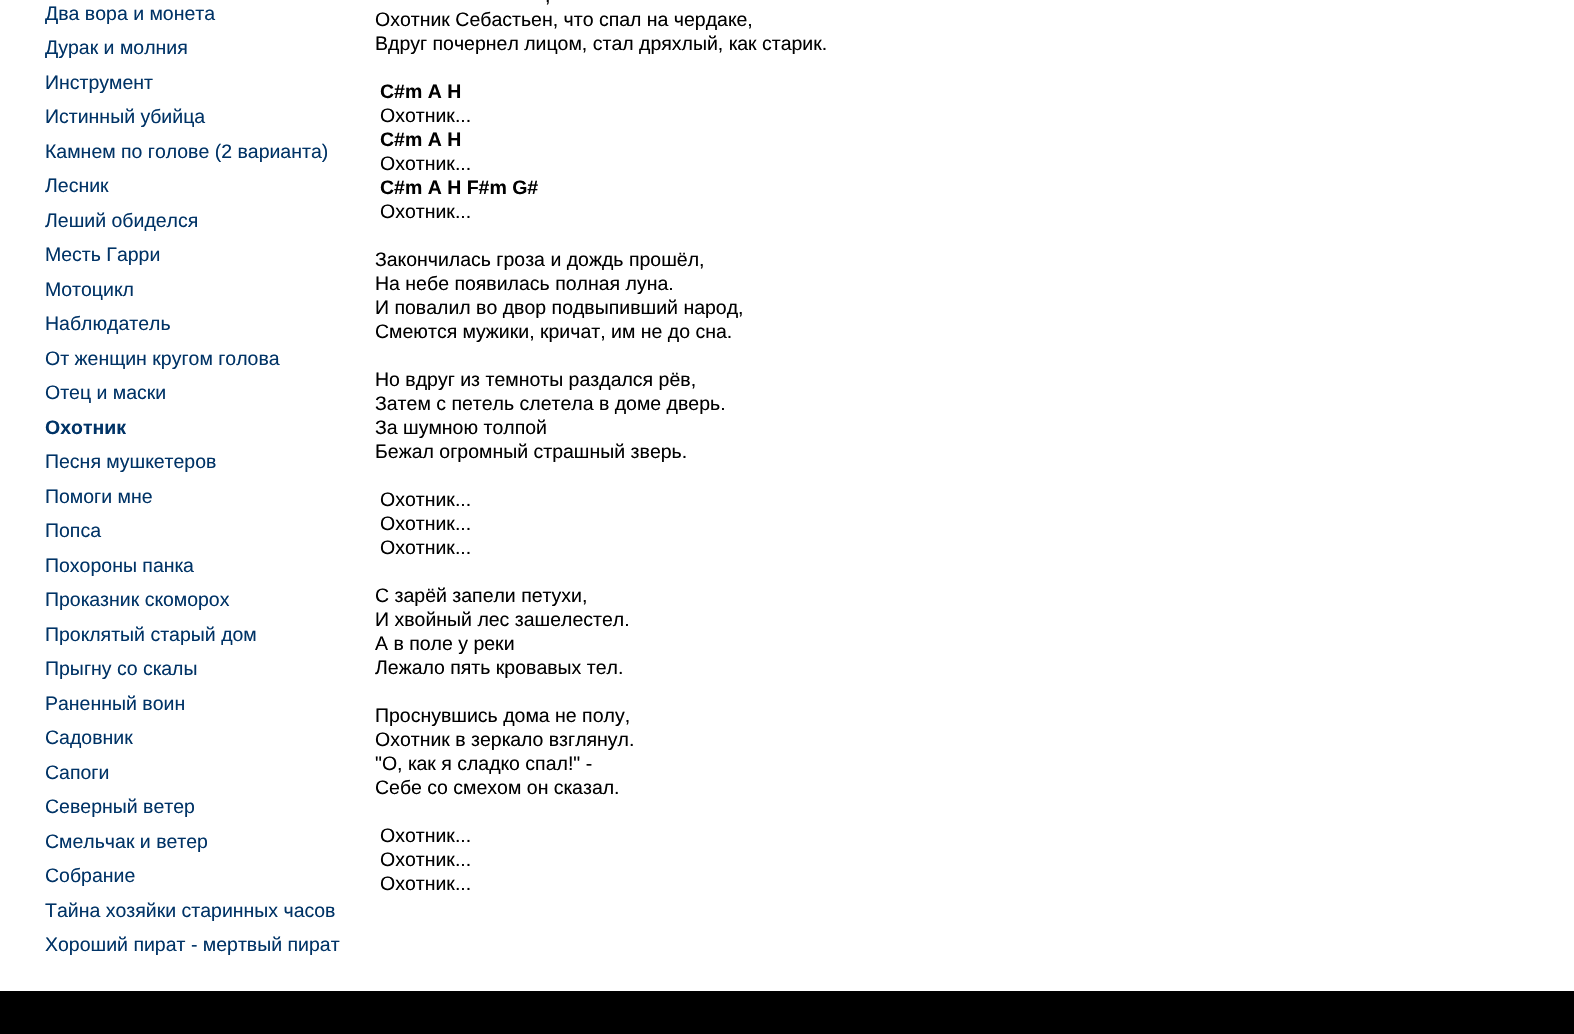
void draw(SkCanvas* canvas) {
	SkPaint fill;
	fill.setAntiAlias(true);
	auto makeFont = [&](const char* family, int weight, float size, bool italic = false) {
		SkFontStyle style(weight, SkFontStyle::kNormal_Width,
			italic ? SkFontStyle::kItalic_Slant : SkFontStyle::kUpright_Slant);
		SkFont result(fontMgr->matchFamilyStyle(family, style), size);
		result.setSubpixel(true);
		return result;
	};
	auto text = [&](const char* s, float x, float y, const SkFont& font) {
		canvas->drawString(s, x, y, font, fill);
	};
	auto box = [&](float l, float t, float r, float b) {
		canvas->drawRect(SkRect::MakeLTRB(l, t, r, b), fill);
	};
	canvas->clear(0xFFFFFFFF);
	fill.setColor(0xFF000000);
	box(0, 991, 1574, 1034);
	auto font1 = makeFont("Liberation Sans", 400, 19.5f);
	fill.setColor(0xFF003366);
	text("Два вора и монета", 45, 20, font1);
	text("Дурак и молния", 45, 54, font1);
	text("Инструмент", 45, 89, font1);
	text("Истинный убийца", 45, 123, font1);
	text("Камнем по голове (2 варианта)", 45, 158, font1);
	text("Лесник", 45, 192, font1);
	text("Леший обиделся", 45, 227, font1);
	text("Месть Гарри", 45, 261, font1);
	text("Мотоцикл", 45, 296, font1);
	text("Наблюдатель", 45, 330, font1);
	text("От женщин кругом голова", 45, 365, font1);
	text("Отец и маски", 45, 399, font1);
	auto font2 = makeFont("Liberation Sans", 700, 19.5f);
	text("Охотник", 45, 434, font2);
	text("Песня мушкетеров", 45, 468, font1);
	text("Помоги мне", 45, 503, font1);
	text("Попса", 45, 537, font1);
	text("Похороны панка", 45, 572, font1);
	text("Проказник скоморох", 45, 606, font1);
	text("Проклятый старый дом", 45, 641, font1);
	text("Прыгну со скалы", 45, 675, font1);
	text("Раненный воин", 45, 710, font1);
	text("Садовник", 45, 744, font1);
	text("Сапоги", 45, 779, font1);
	text("Северный ветер", 45, 813, font1);
	text("Смельчак и ветер", 45, 848, font1);
	text("Собрание", 45, 882, font1);
	text("Тайна хозяйки старинных часов", 45, 917, font1);
	text("Хороший пират - мертвый пират", 45, 951, font1);
	fill.setColor(0xFF000000);
	text(",", 545, 2, font1);
	text("Охотник Себастьен, что спал на чердаке,", 375, 26, font1);
	text("Вдруг почернел лицом, стал дряхлый, как старик.", 375, 50, font1);
	text("C#m A H", 380, 98, font2);
	text("Охотник...", 380, 122, font1);
	text("C#m A H", 380, 146, font2);
	text("Охотник...", 380, 170, font1);
	text("C#m A H F#m G#", 380, 194, font2);
	text("Охотник...", 380, 218, font1);
	text("Закончилась гроза и дождь прошёл,", 375, 266, font1);
	text("На небе появилась полная луна.", 375, 290, font1);
	text("И повалил во двор подвыпивший народ,", 375, 314, font1);
	text("Смеются мужики, кричат, им не до сна.", 375, 338, font1);
	text("Но вдруг из темноты раздался рёв,", 375, 386, font1);
	text("Затем с петель слетела в доме дверь.", 375, 410, font1);
	text("За шумною толпой", 375, 434, font1);
	text("Бежал огромный страшный зверь.", 375, 458, font1);
	text("Охотник...", 380, 506, font1);
	text("Охотник...", 380, 530, font1);
	text("Охотник...", 380, 554, font1);
	text("С зарёй запели петухи,", 375, 602, font1);
	text("И хвойный лес зашелестел.", 375, 626, font1);
	text("А в поле у реки", 375, 650, font1);
	text("Лежало пять кровавых тел.", 375, 674, font1);
	text("Проснувшись дома не полу,", 375, 722, font1);
	text("Охотник в зеркало взглянул.", 375, 746, font1);
	text("\"О, как я сладко спал!\" -", 375, 770, font1);
	text("Себе со смехом он сказал.", 375, 794, font1);
	text("Охотник...", 380, 842, font1);
	text("Охотник...", 380, 866, font1);
	text("Охотник...", 380, 890, font1);
}
